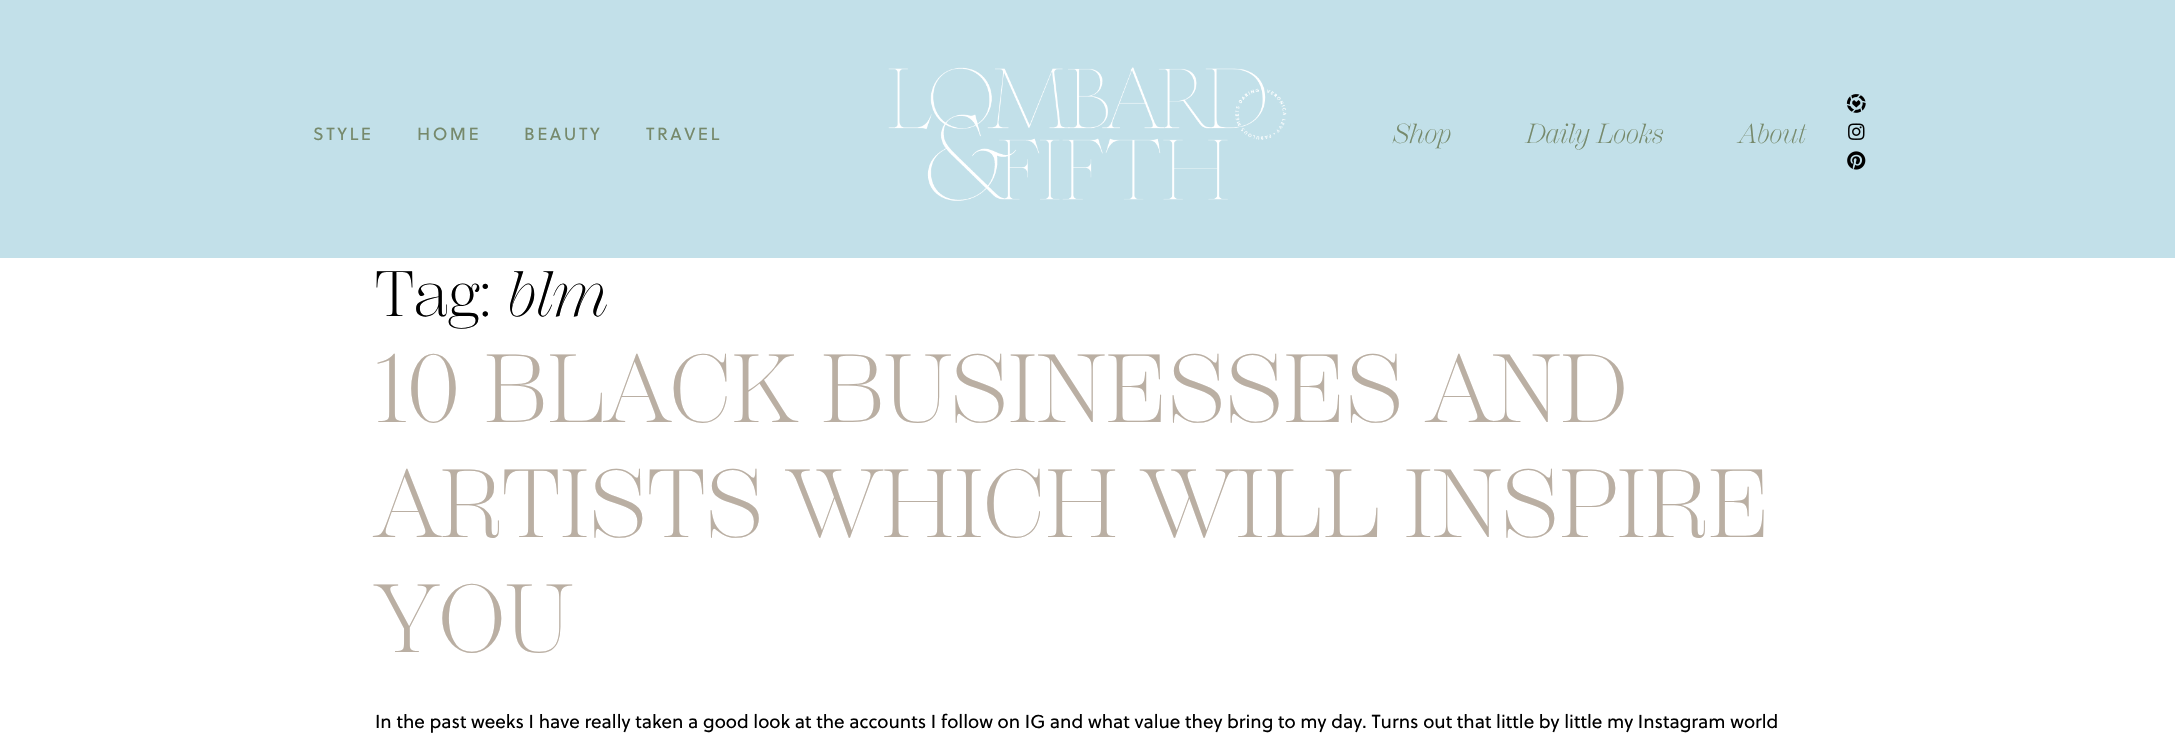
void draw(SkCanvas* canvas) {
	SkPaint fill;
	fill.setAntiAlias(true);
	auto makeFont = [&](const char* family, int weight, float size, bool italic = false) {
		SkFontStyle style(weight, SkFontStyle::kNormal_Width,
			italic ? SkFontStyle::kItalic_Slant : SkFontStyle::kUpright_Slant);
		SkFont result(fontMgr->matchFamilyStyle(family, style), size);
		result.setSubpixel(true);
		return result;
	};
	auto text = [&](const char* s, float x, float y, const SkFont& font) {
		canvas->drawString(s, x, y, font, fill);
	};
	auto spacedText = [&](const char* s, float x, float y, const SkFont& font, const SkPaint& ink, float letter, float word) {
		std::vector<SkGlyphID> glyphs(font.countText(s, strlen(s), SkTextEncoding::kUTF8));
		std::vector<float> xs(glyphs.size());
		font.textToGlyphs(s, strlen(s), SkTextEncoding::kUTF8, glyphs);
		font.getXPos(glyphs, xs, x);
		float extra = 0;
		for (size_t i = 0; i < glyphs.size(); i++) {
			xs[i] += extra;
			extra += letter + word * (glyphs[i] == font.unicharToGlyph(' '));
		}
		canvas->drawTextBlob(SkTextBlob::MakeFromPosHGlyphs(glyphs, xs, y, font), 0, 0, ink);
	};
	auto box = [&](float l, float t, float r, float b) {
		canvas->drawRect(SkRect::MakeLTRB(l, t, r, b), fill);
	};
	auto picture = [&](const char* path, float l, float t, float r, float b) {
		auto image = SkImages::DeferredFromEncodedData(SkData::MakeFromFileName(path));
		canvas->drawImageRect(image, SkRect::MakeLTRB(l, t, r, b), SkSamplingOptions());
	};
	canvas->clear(0xFFFFFFFF);
	fill.setColor(0xFFC2E0E9);
	box(0, 0, 2175, 258);
	picture("image0.png", 888, 67, 1287, 201);
	picture("image1.png", 1846, 94, 1866, 113);
	picture("image2.png", 1848, 123, 1865, 140);
	picture("image3.png", 1847, 151, 1866, 170);
	auto font1 = makeFont("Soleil", 400, 17.5f);
	fill.setColor(0xFF76896B);
	spacedText("STYLE", 313, 140, font1, fill, 2.5f, 0);
	spacedText("HOME", 417, 140, font1, fill, 2.5f, 0);
	spacedText("BEAUTY", 524, 140, font1, fill, 2.5f, 0);
	spacedText("TRAVEL", 646, 140, font1, fill, 2.5f, 0);
	auto font2 = makeFont("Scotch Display", 300, 27.5f, true);
	text("Shop", 1393, 143, font2);
	text("Daily Looks", 1526, 143, font2);
	text("About", 1739, 143, font2);
	auto font3 = makeFont("Scotch Display", 300, 64);
	fill.setColor(0xFF000000);
	text("Tag:", 375, 316, font3);
	auto font4 = makeFont("Scotch Display", 300, 64, true);
	text("blm", 507, 316, font4);
	auto font5 = makeFont("Scotch Display", 300, 96.25f);
	fill.setColor(0xFFBAAFA3);
	text("10 BLACK BUSINESSES AND", 375, 422, font5);
	text("ARTISTS WHICH WILL INSPIRE", 375, 537, font5);
	text("YOU", 375, 652, font5);
	auto font6 = makeFont("Soleil", 400, 18.75f);
	fill.setColor(0xFF000000);
	text("In the past weeks I have really taken a good look at the accounts I follow on IG and what value they bring to my day. Turns out that little by little my Instagram world", 375, 728, font6);
}
